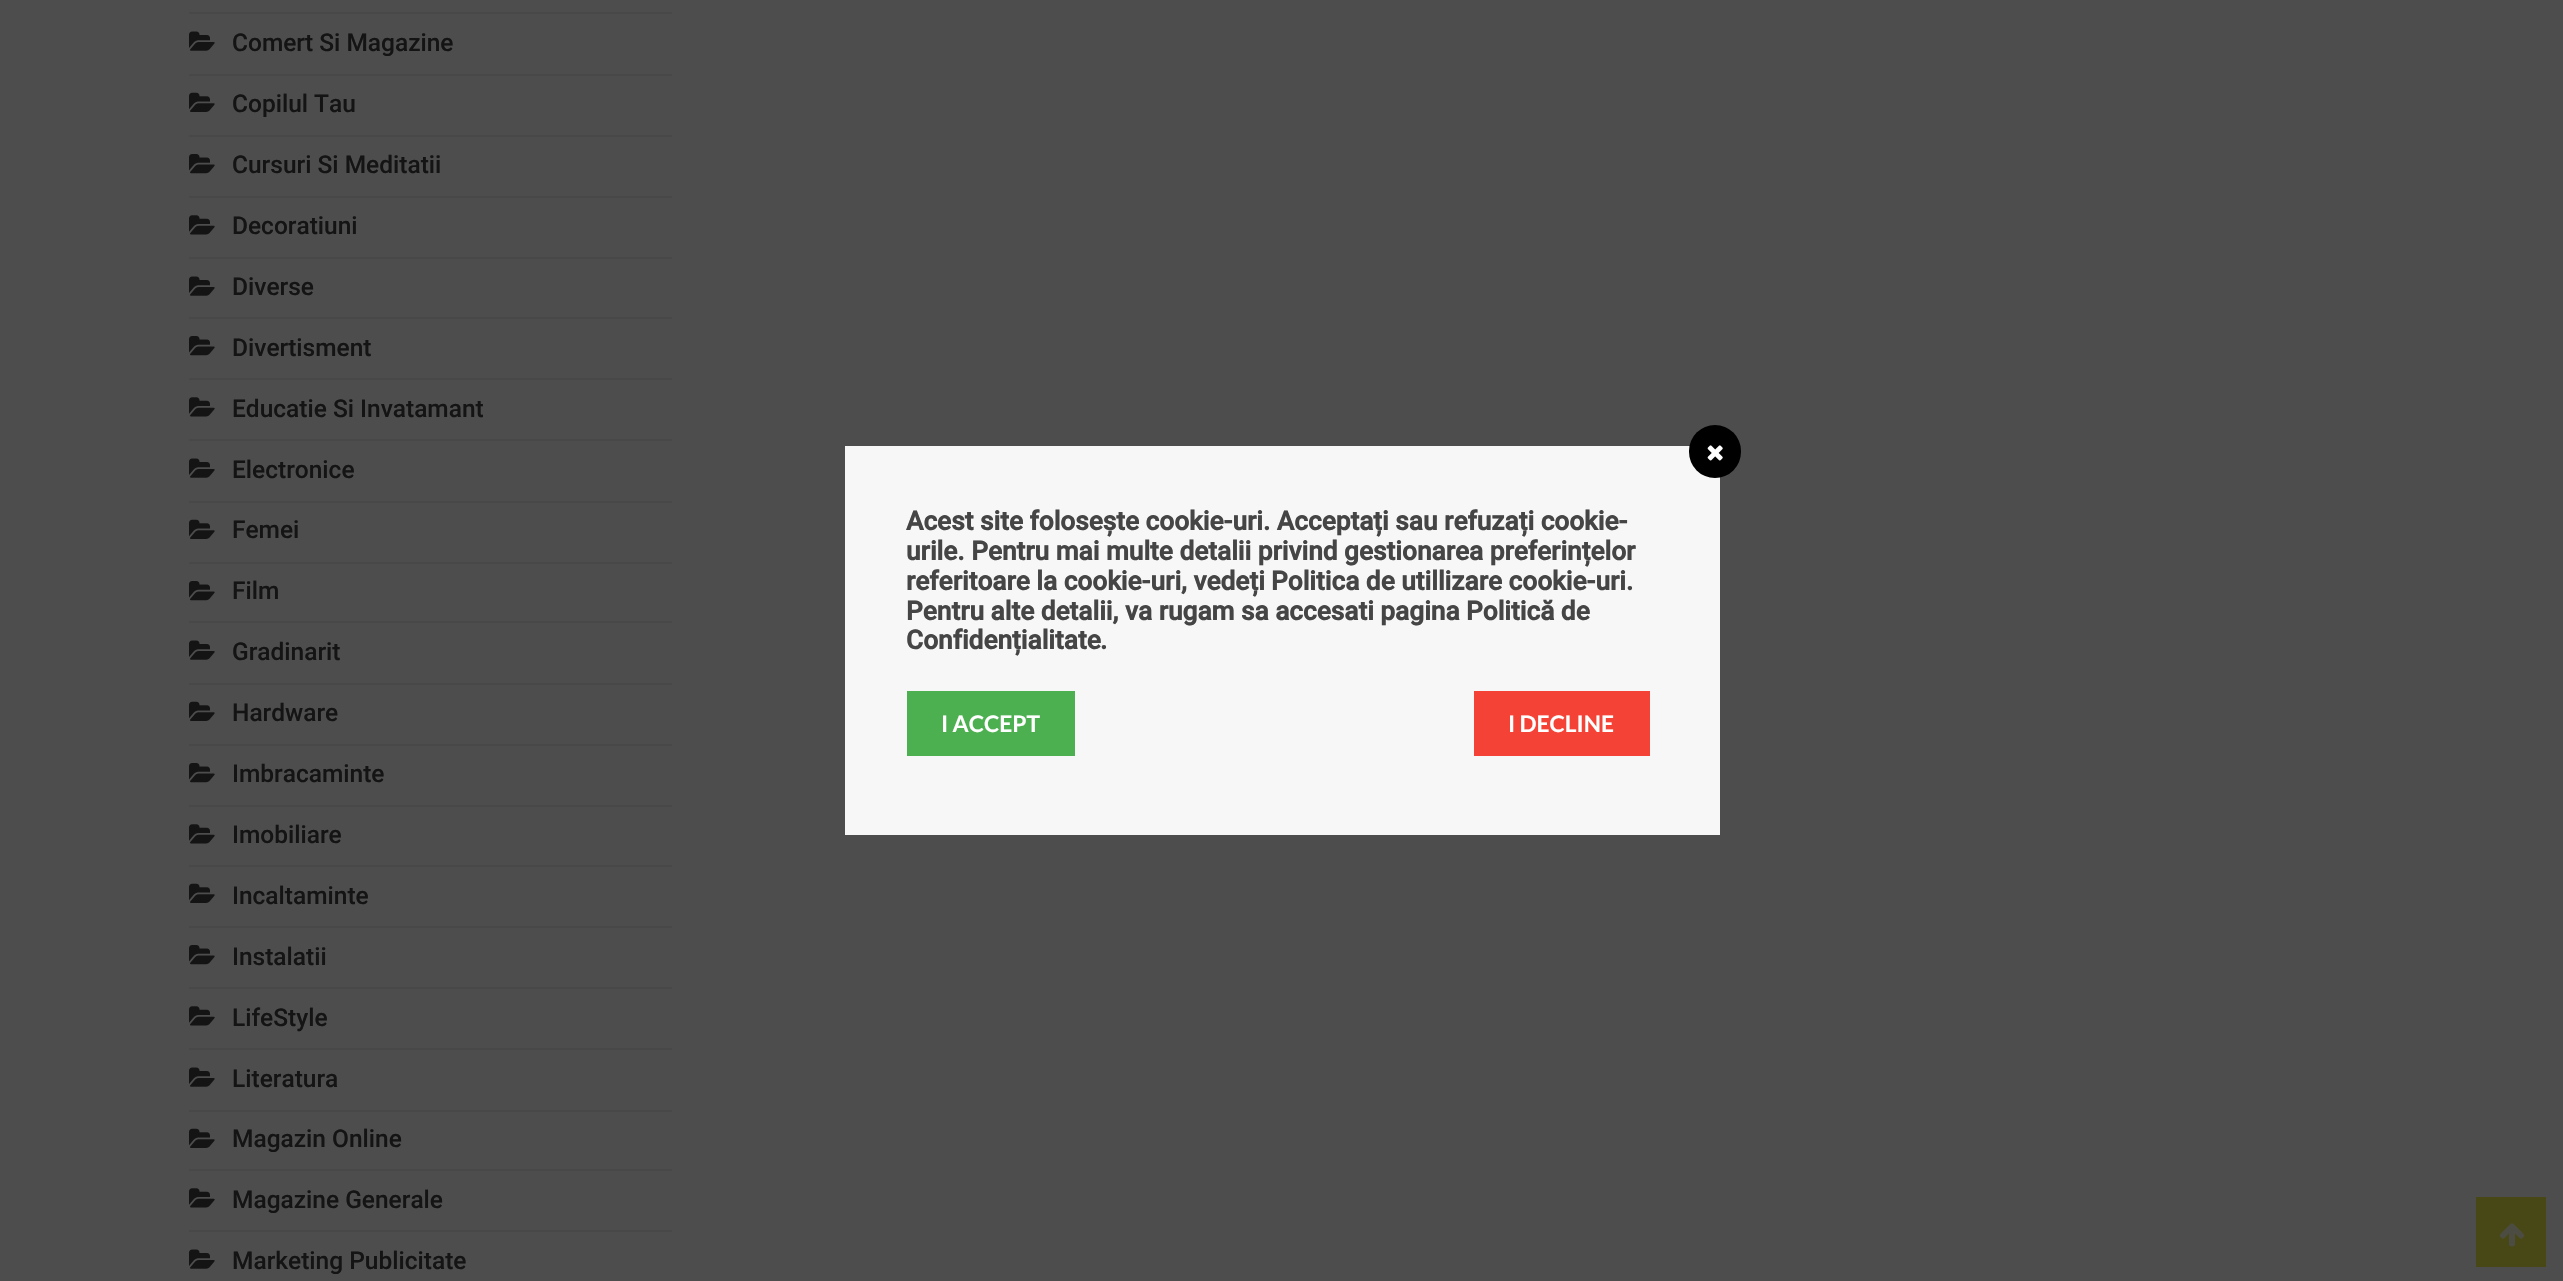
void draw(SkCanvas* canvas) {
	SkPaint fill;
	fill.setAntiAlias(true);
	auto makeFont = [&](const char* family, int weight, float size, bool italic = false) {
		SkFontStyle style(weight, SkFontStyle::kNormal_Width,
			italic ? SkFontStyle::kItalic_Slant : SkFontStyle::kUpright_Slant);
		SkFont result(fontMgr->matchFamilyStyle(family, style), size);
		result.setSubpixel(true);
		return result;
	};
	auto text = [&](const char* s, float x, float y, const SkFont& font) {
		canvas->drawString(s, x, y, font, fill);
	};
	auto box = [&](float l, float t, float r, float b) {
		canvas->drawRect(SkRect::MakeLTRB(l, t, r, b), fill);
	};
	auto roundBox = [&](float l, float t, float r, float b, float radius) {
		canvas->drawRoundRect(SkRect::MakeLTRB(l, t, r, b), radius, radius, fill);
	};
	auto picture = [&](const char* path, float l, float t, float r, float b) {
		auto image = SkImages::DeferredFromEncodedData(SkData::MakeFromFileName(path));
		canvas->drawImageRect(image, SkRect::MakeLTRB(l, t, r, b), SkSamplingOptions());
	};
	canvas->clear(0xFF4D4D4D);
	fill.setColor(0xFF484848);
	box(189, 12, 672, 14);
	box(189, 74, 672, 76);
	picture("image0.png", 189, 31, 215, 51);
	box(189, 135, 672, 137);
	picture("image1.png", 189, 92, 215, 112);
	box(189, 196, 672, 198);
	picture("image2.png", 189, 154, 215, 174);
	box(189, 257, 672, 259);
	picture("image3.png", 189, 215, 215, 235);
	box(189, 317, 672, 319);
	picture("image0.png", 189, 276, 215, 296);
	box(189, 378, 672, 380);
	picture("image2.png", 189, 336, 215, 356);
	box(189, 439, 672, 441);
	picture("image3.png", 189, 397, 215, 417);
	box(189, 501, 672, 503);
	picture("image0.png", 189, 458, 215, 478);
	box(189, 562, 672, 564);
	picture("image1.png", 189, 519, 215, 539);
	box(189, 621, 672, 623);
	picture("image2.png", 189, 581, 215, 601);
	box(189, 683, 672, 685);
	picture("image0.png", 189, 640, 215, 660);
	box(189, 744, 672, 746);
	picture("image1.png", 189, 701, 215, 721);
	box(189, 805, 672, 807);
	picture("image2.png", 189, 763, 215, 783);
	box(189, 865, 672, 867);
	picture("image3.png", 189, 824, 215, 844);
	box(189, 926, 672, 928);
	picture("image1.png", 189, 883, 215, 903);
	box(189, 987, 672, 989);
	picture("image2.png", 189, 945, 215, 965);
	box(189, 1048, 672, 1050);
	picture("image3.png", 189, 1006, 215, 1026);
	box(189, 1110, 672, 1112);
	picture("image0.png", 189, 1067, 215, 1087);
	box(189, 1169, 672, 1171);
	picture("image1.png", 189, 1128, 215, 1148);
	box(189, 1230, 672, 1232);
	picture("image3.png", 189, 1188, 215, 1208);
	picture("image0.png", 189, 1249, 215, 1269);
	fill.setColor(0xFFF7F7F7);
	box(845, 446, 1720, 835);
	fill.setColor(0xFF000000);
	roundBox(1689, 425, 1741, 478, 26);
	picture("image4.png", 1707, 445, 1723, 461);
	fill.setColor(0xFF4CAF50);
	box(907, 691, 1075, 756);
	fill.setColor(0xFFF44336);
	box(1474, 691, 1650, 756);
	fill.setColor(0xFF484817);
	box(2476, 1197, 2546, 1267);
	picture("image5.png", 2499, 1223, 2525, 1247);
	auto font1 = makeFont("Roboto", 500, 24.5f);
	fill.setColor(0xFF141414);
	text("Comert Si Magazine", 232, 51, font1);
	text("Copilul Tau", 232, 112, font1);
	text("Cursuri Si Meditatii", 232, 173, font1);
	text("Decoratiuni", 232, 234, font1);
	text("Diverse", 232, 295, font1);
	text("Divertisment", 232, 356, font1);
	text("Educatie Si Invatamant", 232, 417, font1);
	text("Electronice", 232, 478, font1);
	text("Femei", 232, 538, font1);
	text("Film", 232, 599, font1);
	text("Gradinarit", 232, 660, font1);
	text("Hardware", 232, 721, font1);
	text("Imbracaminte", 232, 782, font1);
	text("Imobiliare", 232, 843, font1);
	text("Incaltaminte", 232, 904, font1);
	text("Instalatii", 232, 965, font1);
	text("LifeStyle", 232, 1026, font1);
	text("Literatura", 232, 1087, font1);
	text("Magazin Online", 232, 1147, font1);
	text("Magazine Generale", 232, 1208, font1);
	text("Marketing Publicitate", 232, 1269, font1);
	auto font2 = makeFont("Roboto", 700, 26.25f);
	fill.setColor(0xFF454545);
	text("Acest site folosește cookie-uri. Acceptați sau refuzați cookie-", 906, 530, font2);
	text("urile. Pentru mai multe detalii privind gestionarea preferințelor", 906, 560, font2);
	text("referitoare la cookie-uri, vedeți", 906, 590, font2);
	text("Politica de utillizare cookie-uri", 1271, 590, font2);
	text(".", 1626, 590, font2);
	text("Pentru alte detalii, va rugam sa accesati pagina", 906, 620, font2);
	text("Politică de", 1466, 620, font2);
	text("Confidențialitate", 906, 649, font2);
	text(".", 1100, 649, font2);
	auto font3 = makeFont("Lato", 700, 22.75f);
	fill.setColor(0xFFFFFFFF);
	text("I ACCEPT", 941, 732, font3);
	text("I DECLINE", 1508, 732, font3);
}
